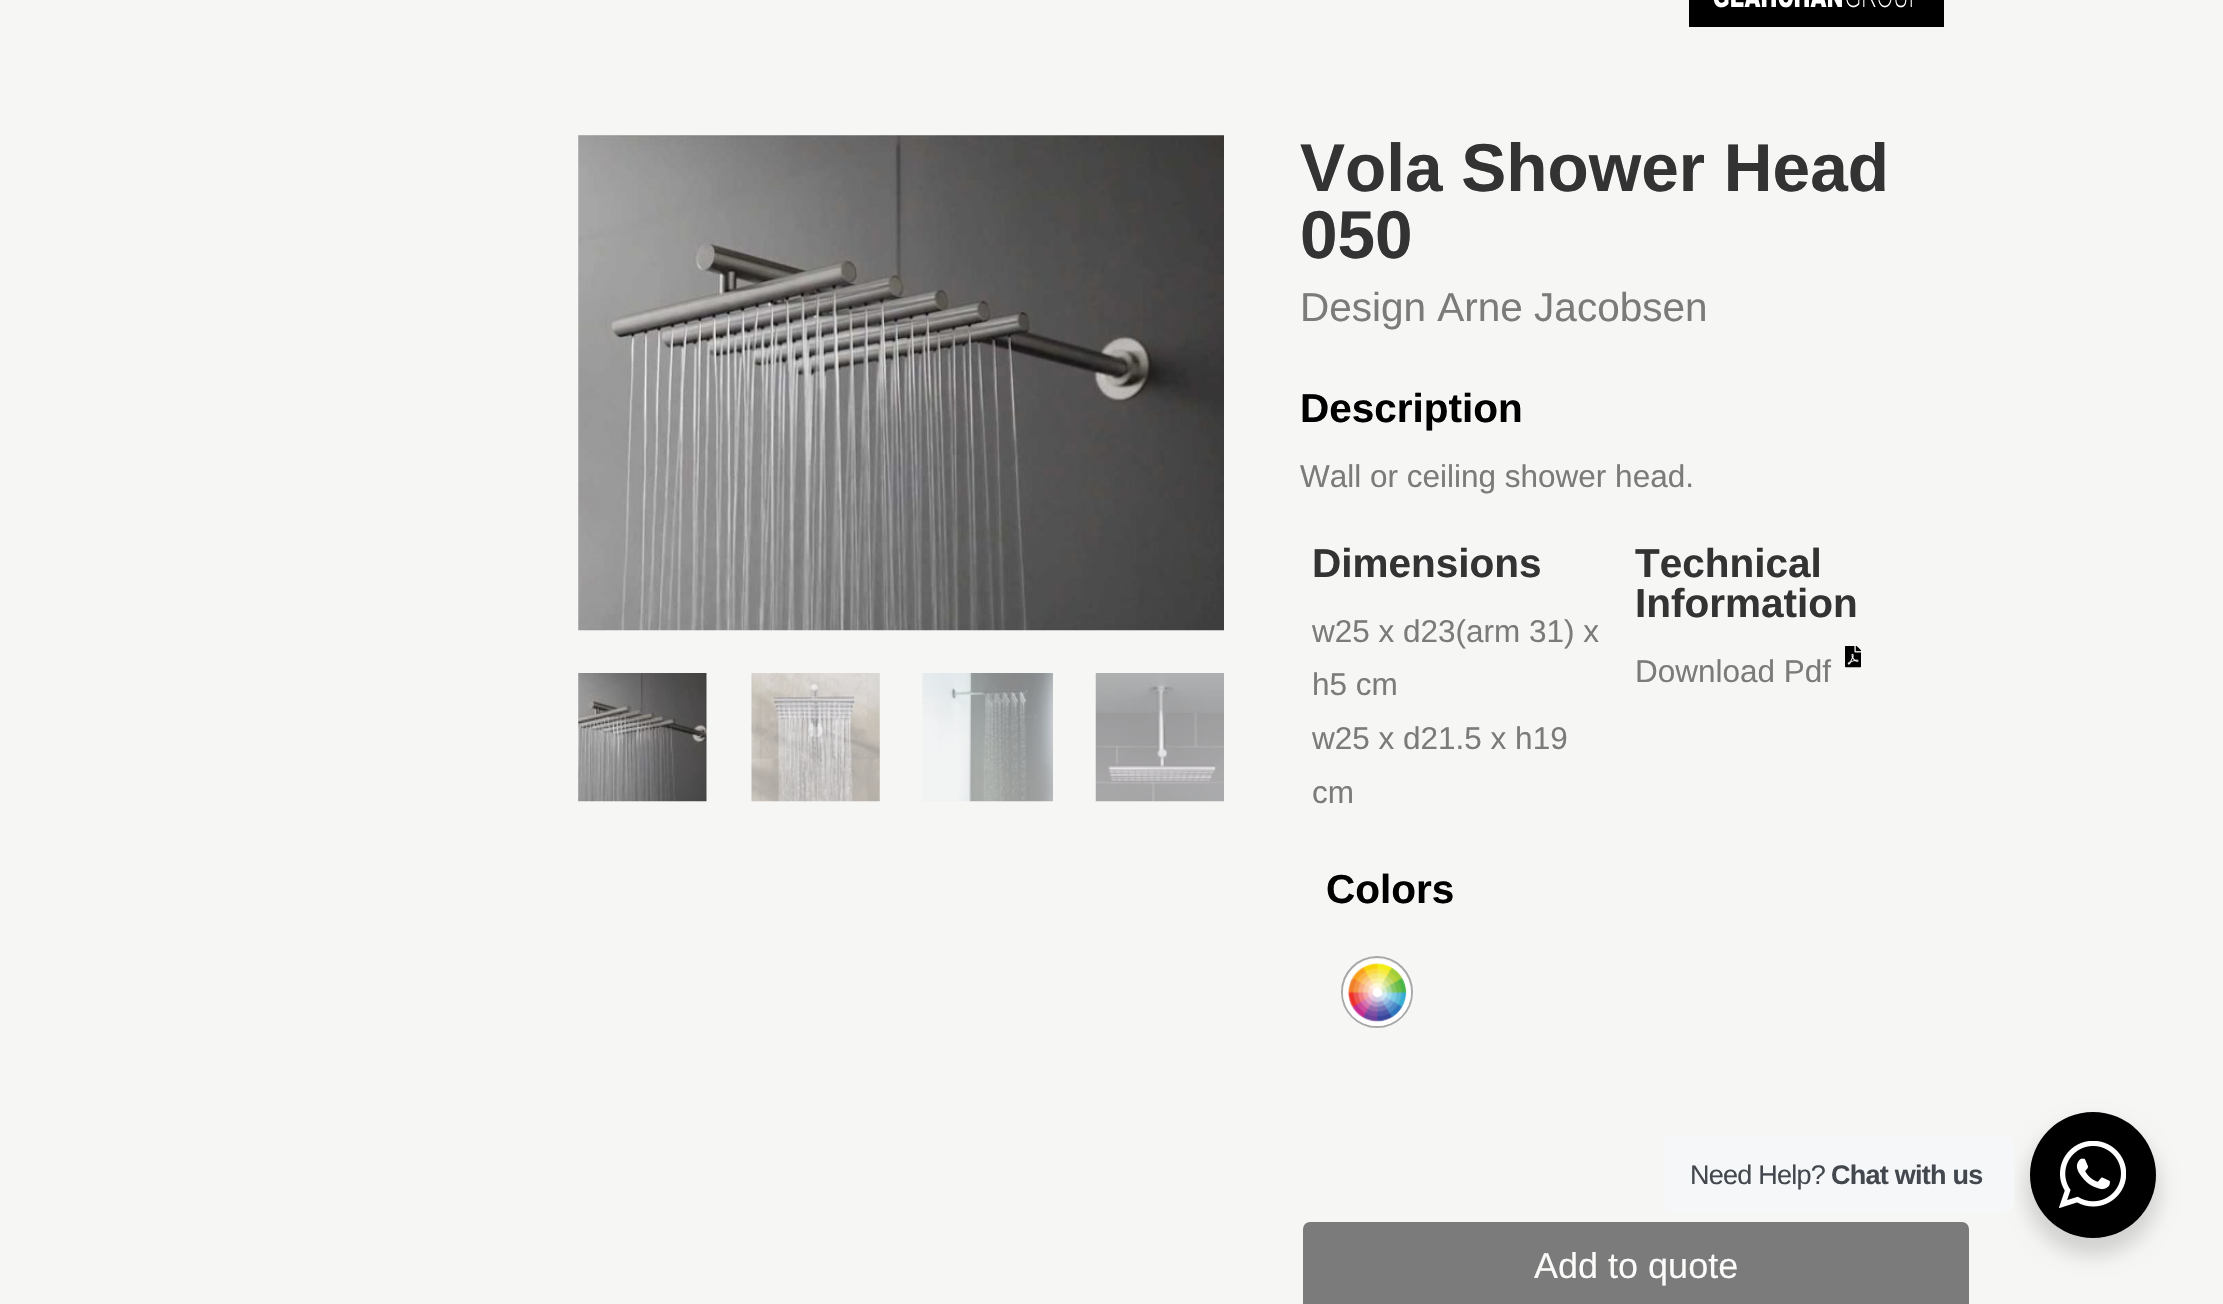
void draw(SkCanvas* canvas) {
	SkPaint fill;
	fill.setAntiAlias(true);
	auto makeFont = [&](const char* family, int weight, float size, bool italic = false) {
		SkFontStyle style(weight, SkFontStyle::kNormal_Width,
			italic ? SkFontStyle::kItalic_Slant : SkFontStyle::kUpright_Slant);
		SkFont result(fontMgr->matchFamilyStyle(family, style), size);
		result.setSubpixel(true);
		return result;
	};
	auto text = [&](const char* s, float x, float y, const SkFont& font) {
		canvas->drawString(s, x, y, font, fill);
	};
	auto spacedText = [&](const char* s, float x, float y, const SkFont& font, const SkPaint& ink, float letter, float word) {
		std::vector<SkGlyphID> glyphs(font.countText(s, strlen(s), SkTextEncoding::kUTF8));
		std::vector<float> xs(glyphs.size());
		font.textToGlyphs(s, strlen(s), SkTextEncoding::kUTF8, glyphs);
		font.getXPos(glyphs, xs, x);
		float extra = 0;
		for (size_t i = 0; i < glyphs.size(); i++) {
			xs[i] += extra;
			extra += letter + word * (glyphs[i] == font.unicharToGlyph(' '));
		}
		canvas->drawTextBlob(SkTextBlob::MakeFromPosHGlyphs(glyphs, xs, y, font), 0, 0, ink);
	};
	auto roundBox = [&](float l, float t, float r, float b, float radius) {
		canvas->drawRoundRect(SkRect::MakeLTRB(l, t, r, b), radius, radius, fill);
	};
	auto picture = [&](const char* path, float l, float t, float r, float b) {
		auto image = SkImages::DeferredFromEncodedData(SkData::MakeFromFileName(path));
		canvas->drawImageRect(image, SkRect::MakeLTRB(l, t, r, b), SkSamplingOptions());
	};
	canvas->clear(0xFFF6F6F5);
	picture("image0.png", 1689, 0, 1944, 27);
	picture("image1.png", 578, 135, 1224, 631);
	picture("image2.png", 578, 673, 707, 802);
	picture("image3.png", 751, 673, 880, 802);
	picture("image4.png", 922, 673, 1053, 802);
	picture("image5.png", 1095, 673, 1224, 802);
	picture("image6.png", 1845, 646, 1861, 668);
	fill.setStyle(SkPaint::kStroke_Style);
	fill.setStrokeWidth(2);
	fill.setColor(0xFFA8A8A8);
	canvas->drawCircle(1377, 992, 35, fill);
	fill.setStyle(SkPaint::kFill_Style);
	fill.setColor(0xFFFFFFFF);
	roundBox(1343, 959, 1411, 1026, 33.5f);
	picture("image7.png", 1347, 963, 1407, 1022);
	fill.setColor(0xFF7B7B7B);
	canvas->drawRoundRect(SkRect::MakeLTRB(1304, 1223, 1968, 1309), 6, 6, fill);
	fill.setStyle(SkPaint::kStroke_Style);
	canvas->drawRoundRect(SkRect::MakeLTRB(1304, 1223, 1968, 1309), 6, 6, fill);
	fill.setStyle(SkPaint::kFill_Style);
	fill.setColor(0x24000000);
	fill.setMaskFilter(SkMaskFilter::MakeBlur(kNormal_SkBlurStyle, 9));
	canvas->drawRoundRect(SkRect::MakeLTRB(2025, 1121, 2160, 1256), 67.5f, 67.5f, fill);
	fill.setMaskFilter(nullptr);
	fill.setColor(0xFFF5F7F9);
	roundBox(1663, 1136, 2014, 1213, 9);
	fill.setColor(0xFF000000);
	canvas->drawCircle(2093, 1175, 63, fill);
	picture("image8.png", 2059, 1141, 2126, 1208);
	auto font1 = makeFont("Liberation Sans", 700, 67.5f);
	fill.setColor(0xFF333333);
	text("Vola Shower Head", 1300, 191, font1);
	text("050", 1300, 258, font1);
	auto font2 = makeFont("Liberation Sans", 400, 40.5f);
	fill.setColor(0xFF7B7B7A);
	text("Design Arne Jacobsen", 1300, 321, font2);
	auto font3 = makeFont("Liberation Sans", 700, 40.5f);
	fill.setColor(0xFF000000);
	text("Description", 1300, 422, font3);
	auto font4 = makeFont("Liberation Sans", 400, 31.5f);
	fill.setColor(0xFF7B7B7A);
	text("Wall or ceiling shower head.", 1300, 487, font4);
	fill.setColor(0xFF333333);
	text("Dimensions", 1312, 577, font3);
	fill.setColor(0xFF7B7B7A);
	text("w25 x d23(arm 31) x", 1312, 642, font4);
	text("h5 cm", 1312, 695, font4);
	text("w25 x d21.5 x h19", 1312, 749, font4);
	text("cm", 1312, 803, font4);
	fill.setColor(0xFF333333);
	text("Technical", 1635, 577, font3);
	text("Information", 1635, 617, font3);
	fill.setColor(0xFF7B7B7A);
	text("Download Pdf", 1635, 682, font4);
	fill.setColor(0xFF000000);
	text("Colors", 1326, 903, font3);
	auto font5 = makeFont("Liberation Sans", 400, 36);
	fill.setColor(0xFFFBFBFA);
	text("Add to quote", 1534, 1278, font5);
	auto font6 = makeFont("Liberation Sans", 400, 27);
	fill.setColor(0xFF43474E);
	spacedText("Need Help?", 1690, 1184, font6, fill, -0.75f, 0);
	auto font7 = makeFont("Liberation Sans", 700, 27);
	spacedText("Chat with us", 1831, 1184, font7, fill, -0.75f, 0);
}
